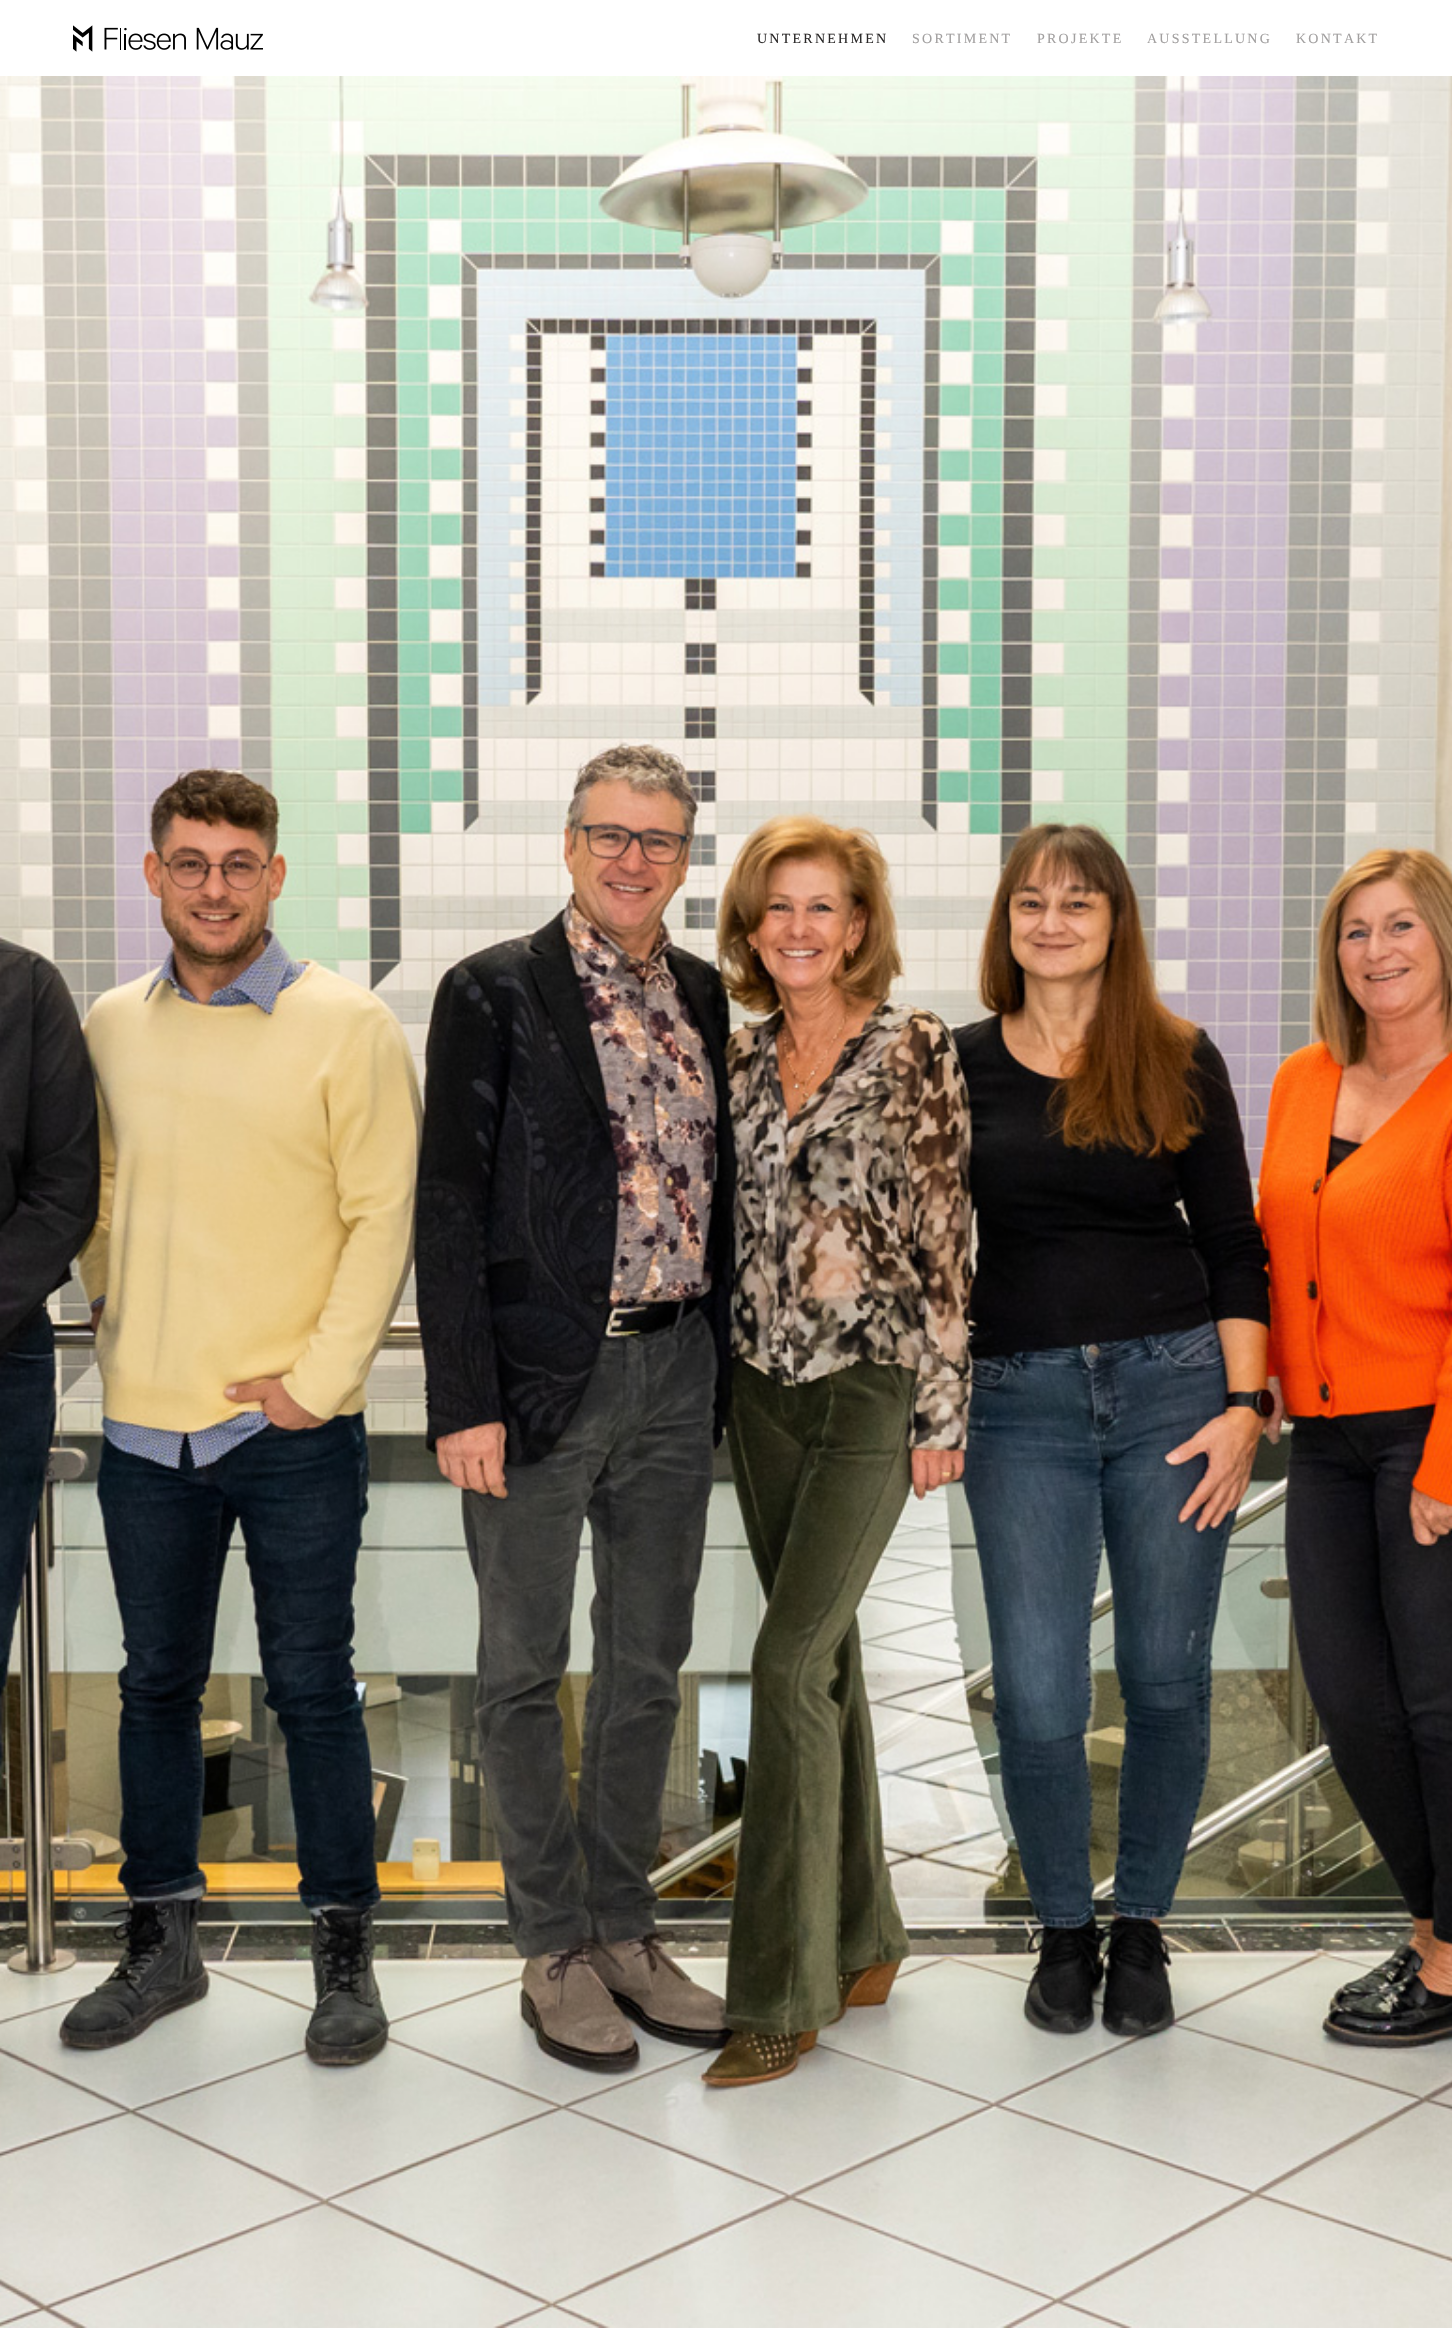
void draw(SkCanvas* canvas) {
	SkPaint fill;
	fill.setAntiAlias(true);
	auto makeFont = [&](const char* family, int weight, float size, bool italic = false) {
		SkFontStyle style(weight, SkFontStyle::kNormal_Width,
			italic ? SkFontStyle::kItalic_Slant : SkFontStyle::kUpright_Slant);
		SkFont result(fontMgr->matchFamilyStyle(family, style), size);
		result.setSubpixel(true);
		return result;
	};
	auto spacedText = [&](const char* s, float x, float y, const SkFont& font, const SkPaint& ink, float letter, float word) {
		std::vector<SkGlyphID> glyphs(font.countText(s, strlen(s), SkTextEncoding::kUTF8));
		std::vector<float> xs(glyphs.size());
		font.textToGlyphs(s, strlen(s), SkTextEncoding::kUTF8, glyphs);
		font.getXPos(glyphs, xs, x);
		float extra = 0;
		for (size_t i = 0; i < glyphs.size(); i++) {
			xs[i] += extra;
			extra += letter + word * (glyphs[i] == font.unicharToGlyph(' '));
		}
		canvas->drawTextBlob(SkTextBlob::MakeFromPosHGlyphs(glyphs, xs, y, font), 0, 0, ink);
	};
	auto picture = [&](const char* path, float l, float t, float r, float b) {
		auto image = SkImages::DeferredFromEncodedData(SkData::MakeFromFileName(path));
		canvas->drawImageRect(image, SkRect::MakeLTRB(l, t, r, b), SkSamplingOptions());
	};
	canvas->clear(0xFFFFFFFF);
	picture("image0.png", 73, 25, 263, 52);
	picture("image1.png", 0, 76, 1452, 2328);
	auto font1 = makeFont("Liberation Serif", 400, 14);
	fill.setColor(0xFF2B2929);
	spacedText("UNTERNEHMEN", 757, 43, font1, fill, 2.25f, 0);
	fill.setColor(0xFFA2A0A0);
	spacedText("SORTIMENT", 912, 43, font1, fill, 2.25f, 0);
	spacedText("PROJEKTE", 1037, 43, font1, fill, 2.25f, 0);
	spacedText("AUSSTELLUNG", 1147, 43, font1, fill, 2.25f, 0);
	spacedText("KONTAKT", 1296, 43, font1, fill, 2.25f, 0);
}
